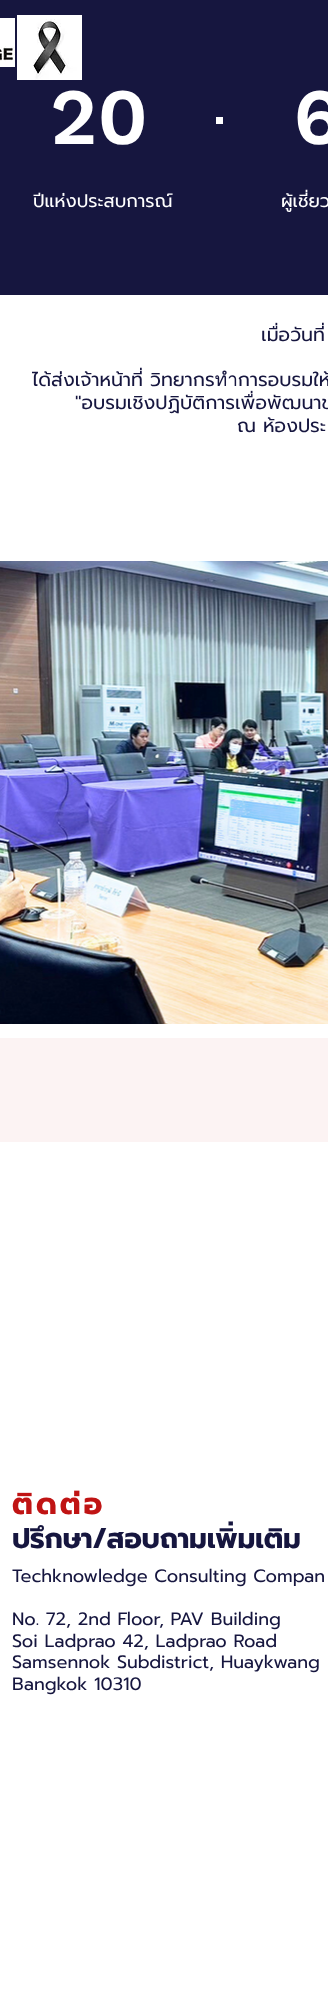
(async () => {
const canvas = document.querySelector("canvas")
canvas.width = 328
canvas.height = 2004
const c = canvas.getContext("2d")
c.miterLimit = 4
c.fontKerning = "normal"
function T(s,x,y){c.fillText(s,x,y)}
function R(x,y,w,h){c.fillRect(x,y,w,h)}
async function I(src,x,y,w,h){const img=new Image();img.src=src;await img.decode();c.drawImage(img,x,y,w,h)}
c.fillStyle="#fff"
R(0,0,328,2004)
c.fillStyle="#16163f"
R(0,0,328,295)
await I("1.png",0,18,15,49)
await I("2.png",17,15,65,65)
c.font="600 80px Work Sans"
c.fillStyle="#fff"
T("20",50,144)
R(216,117,7,7)
T("6",293,144)
c.font="18px Prompt"
T("ปีแห่งประสบการณ์",33,207)
T("ผู้เชี่ยว",281,207)
c.font="19px Prompt"
c.fillStyle="#16163f"
T("เมื่อวันที่",261,341)
T("ได้ส่งเจ้าหน้าที่ วิทยากรทำการอบรมให้",32,386)
T("\"อบรมเชิงปฏิบัติการเพื่อพัฒนาข",75,409)
T("ณ ห้องประ",237,432)
await I("3.png",0,561,328,463)
c.fillStyle="#fcf3f3"
R(0,1038,328,104)
c.letterSpacing="3px"
c.font="bold 30px Prompt"
c.fillStyle="#c01414"
T("ติดต่อ",12,1514)
c.letterSpacing="-0.25px"
c.font="bold 28px Prompt"
c.fillStyle="#16163f"
T("ปรึกษา/สอบถามเพิ่มเติม",12,1548)
c.letterSpacing="0px"
c.font="18px Prompt"
T("Techknowledge Consulting Compan",12,1582)
T("No. 72, 2nd Floor, PAV Building",12,1625)
T("Soi Ladprao 42, Ladprao Road",12,1647)
T("Samsennok Subdistrict, Huaykwang",12,1668)
T("Bangkok 10310",12,1690)
})()
